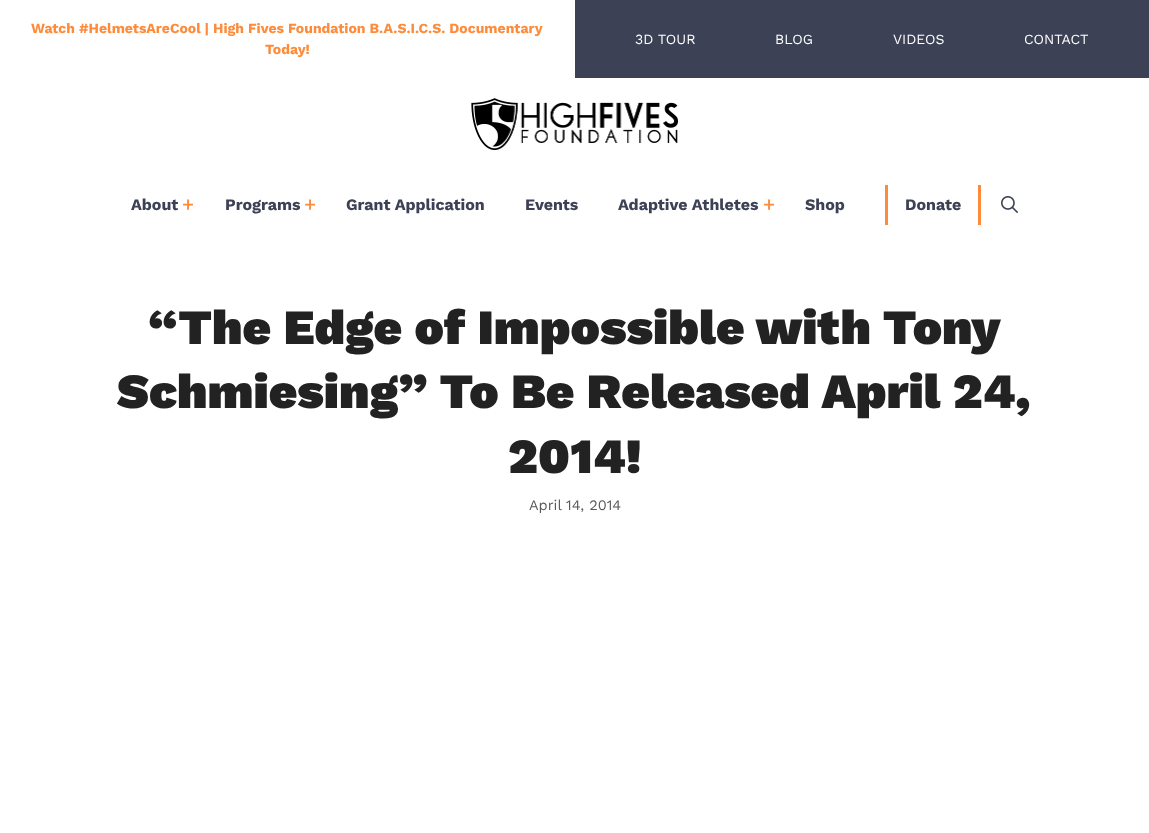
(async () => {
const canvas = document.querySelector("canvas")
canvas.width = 1149
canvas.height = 833
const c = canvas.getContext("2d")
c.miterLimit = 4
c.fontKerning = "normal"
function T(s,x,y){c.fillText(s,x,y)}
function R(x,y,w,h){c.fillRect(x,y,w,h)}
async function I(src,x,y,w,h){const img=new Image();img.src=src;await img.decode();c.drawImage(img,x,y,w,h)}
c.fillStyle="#fff"
R(0,0,1149,833)
c.font="bold 14px Work Sans"
c.fillStyle="#fd8b3a"
T("Watch #HelmetsAreCool | High Fives Foundation B.A.S.I.C.S. Documentary",31,33)
T("Today!",265,54)
c.fillStyle="#3c4155"
R(575,0,574,78)
c.font="14px Work Sans"
c.fillStyle="#fff"
T("3D TOUR",635,44)
T("BLOG",775,44)
T("VIDEOS",893,44)
T("CONTACT",1024,44)
await I("1.png",471,98,207,52)
c.font="bold 16px Work Sans"
c.fillStyle="#3c4155"
T("About",131,210)
c.font="500 20px Work Sans"
c.fillStyle="#fd8b3a"
T("+",182,211)
c.font="bold 16px Work Sans"
c.fillStyle="#3c4155"
T("Programs",225,210)
c.font="500 20px Work Sans"
c.fillStyle="#fd8b3a"
T("+",304,211)
c.font="bold 16px Work Sans"
c.fillStyle="#3c4155"
T("Grant Application",346,210)
T("Events",525,210)
T("Adaptive Athletes",618,210)
c.font="500 20px Work Sans"
c.fillStyle="#fd8b3a"
T("+",763,211)
c.font="bold 16px Work Sans"
c.fillStyle="#3c4155"
T("Shop",805,210)
c.fillStyle="#fd8b3a"
R(885,185,3,40)
c.fillStyle="#3c4155"
T("Donate",905,210)
c.fillStyle="#fd8b3a"
R(978,185,3,40)
await I("2.png",1001,196,17,17)
c.font="900 49.25px Work Sans"
c.fillStyle="#222"
T("“The Edge of Impossible with Tony",148,344)
T("Schmiesing” To Be Released April 24,",117,408)
T("2014!",508,473)
c.font="14.5px Work Sans"
c.fillStyle="#595959"
T("April 14, 2014",529,510)
})()
